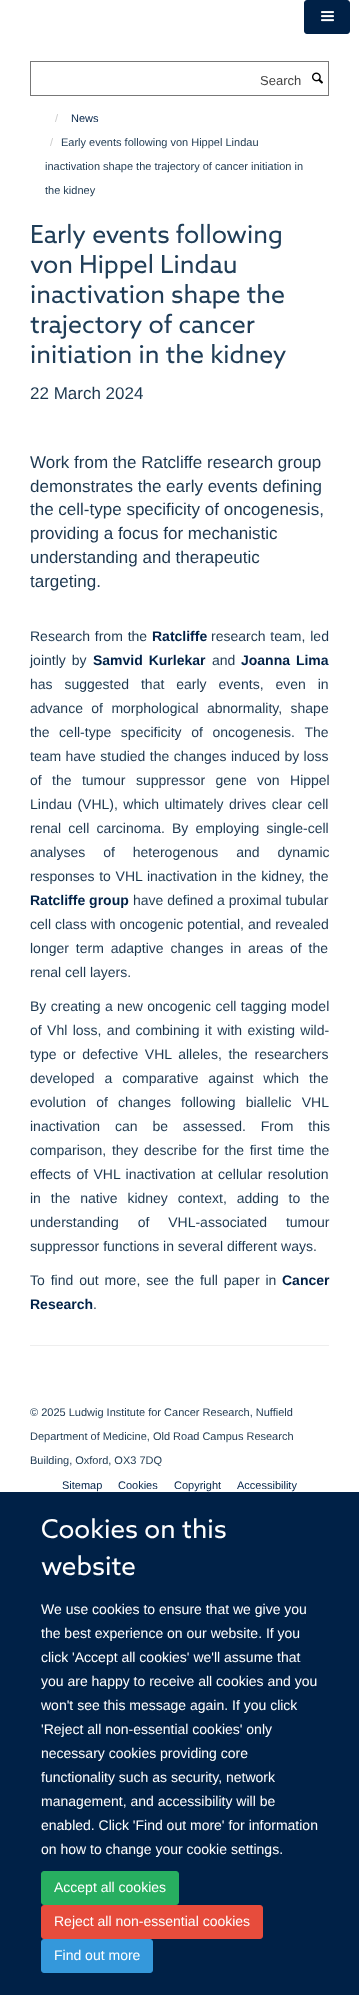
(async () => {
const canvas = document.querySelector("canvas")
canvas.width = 359
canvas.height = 1995
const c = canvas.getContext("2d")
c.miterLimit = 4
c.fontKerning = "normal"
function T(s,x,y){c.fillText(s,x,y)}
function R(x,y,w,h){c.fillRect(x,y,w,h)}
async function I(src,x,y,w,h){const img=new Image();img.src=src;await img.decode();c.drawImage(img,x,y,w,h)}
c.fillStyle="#fff"
R(0,0,359,1995)
c.fillStyle="#002147"
c.beginPath()
c.roundRect(304.5,.5,45,33,2.5)
c.fill()
c.strokeStyle="#002147"
c.stroke()
await I("1.png",321,11,13,11)
c.strokeStyle="#777"
c.strokeRect(30.5,61.5,298,34)
c.font="13px Liberation Sans"
c.fillStyle="#444"
T("Search",260,85)
await I("2.png",312,72,11,12)
c.font="11px Liberation Sans"
c.fillStyle="#ccc"
T("/",55,122)
c.fillStyle="#002147"
T("News",71,122)
c.fillStyle="#ccc"
T("/",50,146)
c.fillStyle="#1d3850"
T("Early events following von Hippel Lindau",61,146)
T("inactivation shape the trajectory of cancer initiation in",45,170)
T("the kidney",45,194)
c.font="25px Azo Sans"
c.fillStyle="#203e58"
T("Early events following",30,243)
T("von Hippel Lindau",30,273)
T("inactivation shape the",30,303)
T("trajectory of cancer",30,333)
T("initiation in the kidney",30,363)
c.font="17px Liberation Sans"
c.fillStyle="#1d3850"
T("22 March 2024",30,399)
T("Work from the Ratcliffe research group",30,468)
T("demonstrates the early events defining",30,492)
T("the cell-type specificity of oncogenesis,",30,515)
T("providing a focus for mechanistic",30,539)
T("understanding and therapeutic",30,563)
T("targeting.",30,587)
c.wordSpacing="1px"
c.font="14px Liberation Sans"
T("Research from the",30,641)
c.wordSpacing="0px"
c.font="bold 14px Liberation Sans"
c.fillStyle="#002147"
T("Ratcliffe",152,641)
c.wordSpacing="1px"
c.font="14px Liberation Sans"
c.fillStyle="#1d3850"
T("research team, led",211,641)
c.wordSpacing="2px"
T("jointly by",30,665)
c.font="bold 14px Liberation Sans"
c.fillStyle="#002147"
T("Samvid Kurlekar",93,665)
c.wordSpacing="0px"
c.font="14px Liberation Sans"
c.fillStyle="#1d3850"
T("and",212,665)
c.wordSpacing="2px"
c.font="bold 14px Liberation Sans"
c.fillStyle="#002147"
T("Joanna Lima",241,665)
c.wordSpacing="8px"
c.font="14px Liberation Sans"
c.fillStyle="#1d3850"
T("has suggested that early events, even in",30,689)
c.wordSpacing="4.5px"
T("advance of morphological abnormality, shape",30,713)
c.wordSpacing="5.75px"
T("the cell-type specificity of oncogenesis. The",30,737)
c.wordSpacing="0.5px"
T("team have studied the changes induced by loss",30,761)
c.wordSpacing="6.5px"
T("of the tumour suppressor gene von Hippel",30,785)
c.wordSpacing="1.5px"
T("Lindau (VHL), which ultimately drives clear cell",30,809)
c.wordSpacing="3.25px"
T("renal cell carcinoma. By employing single-cell",30,833)
c.wordSpacing="14px"
T("analyses of heterogenous and dynamic",30,857)
c.wordSpacing="0.75px"
T("responses to VHL inactivation in the kidney, the",30,881)
c.wordSpacing="0px"
c.font="bold 14px Liberation Sans"
c.fillStyle="#002147"
T("Ratcliffe group",30,905)
c.font="14px Liberation Sans"
c.fillStyle="#1d3850"
T("have defined a proximal tubular",133,905)
T("cell class with oncogenic potential, and revealed",30,929)
c.wordSpacing="3px"
T("longer term adaptive changes in areas of the",30,953)
c.wordSpacing="0px"
T("renal cell layers.",30,977)
c.wordSpacing="0.5px"
T("By creating a new oncogenic cell tagging model",30,1011)
c.wordSpacing="1.5px"
T("of Vhl loss, and combining it with existing wild-",30,1035)
c.wordSpacing="2.75px"
T("type or defective VHL alleles, the researchers",30,1059)
c.wordSpacing="6px"
T("developed a comparative against which the",30,1083)
c.wordSpacing="6.25px"
T("evolution of changes following biallelic VHL",30,1107)
c.wordSpacing="11px"
T("inactivation can be assessed. From this",30,1131)
c.wordSpacing="1.75px"
T("comparison, they describe for the first time the",30,1155)
c.wordSpacing="1.5px"
T("effects of VHL inactivation at cellular resolution",30,1179)
c.wordSpacing="6px"
T("in the native kidney context, adding to the",30,1203)
c.wordSpacing="15px"
T("understanding of VHL-associated tumour",30,1227)
c.wordSpacing="0px"
T("suppressor functions in several different ways.",30,1251)
c.wordSpacing="2px"
T("To find out more, see the full paper in",30,1285)
c.wordSpacing="0px"
c.font="bold 14px Liberation Sans"
c.fillStyle="#002147"
T("Cancer",282,1285)
T("Research",30,1309)
c.font="14px Liberation Sans"
c.fillStyle="#1d3850"
T(".",93,1309)
c.fillStyle="#eee"
R(30,1345,299,1)
c.font="11px Liberation Sans"
c.fillStyle="#1d3850"
T("© 2025 Ludwig Institute for Cancer Research, Nuffield",30,1416)
T("Department of Medicine, Old Road Campus Research",30,1440)
T("Building, Oxford, OX3 7DQ",30,1464)
c.fillStyle="#002147"
T("Sitemap",62,1489)
T("Cookies",118,1489)
T("Copyright",174,1489)
T("Accessibility",237,1489)
R(0,1492,359,503)
c.font="26px Azo Sans"
c.fillStyle="#fff"
T("Cookies on this",41,1538)
T("website",41,1575)
c.font="14px Liberation Sans"
T("We use cookies to ensure that we give you",41,1614)
T("the best experience on our website. If you",41,1638)
T("click 'Accept all cookies' we'll assume that",41,1662)
T("you are happy to receive all cookies and you",41,1686)
T("won't see this message again. If you click",41,1710)
T("'Reject all non-essential cookies' only",41,1734)
T("necessary cookies providing core",41,1758)
T("functionality such as security, network",41,1782)
T("management, and accessibility will be",41,1806)
T("enabled. Click 'Find out more' for information",41,1830)
T("on how to change your cookie settings.",41,1854)
c.fillStyle="#27ae60"
c.beginPath()
c.roundRect(41.5,1871.5,137,33,2.5)
c.fill()
c.strokeStyle="#27ae60"
c.stroke()
c.fillStyle="#fff"
T("Accept all cookies",54,1892)
c.fillStyle="#e74c3c"
c.beginPath()
c.roundRect(41.5,1905.5,221,33,2.5)
c.fill()
c.strokeStyle="#e74c3c"
c.stroke()
c.fillStyle="#fff"
T("Reject all non-essential cookies",54,1926)
c.fillStyle="#3498db"
c.beginPath()
c.roundRect(41.5,1939.5,111,33,2.5)
c.fill()
c.strokeStyle="#3498db"
c.stroke()
c.fillStyle="#fff"
T("Find out more",54,1960)
})()
